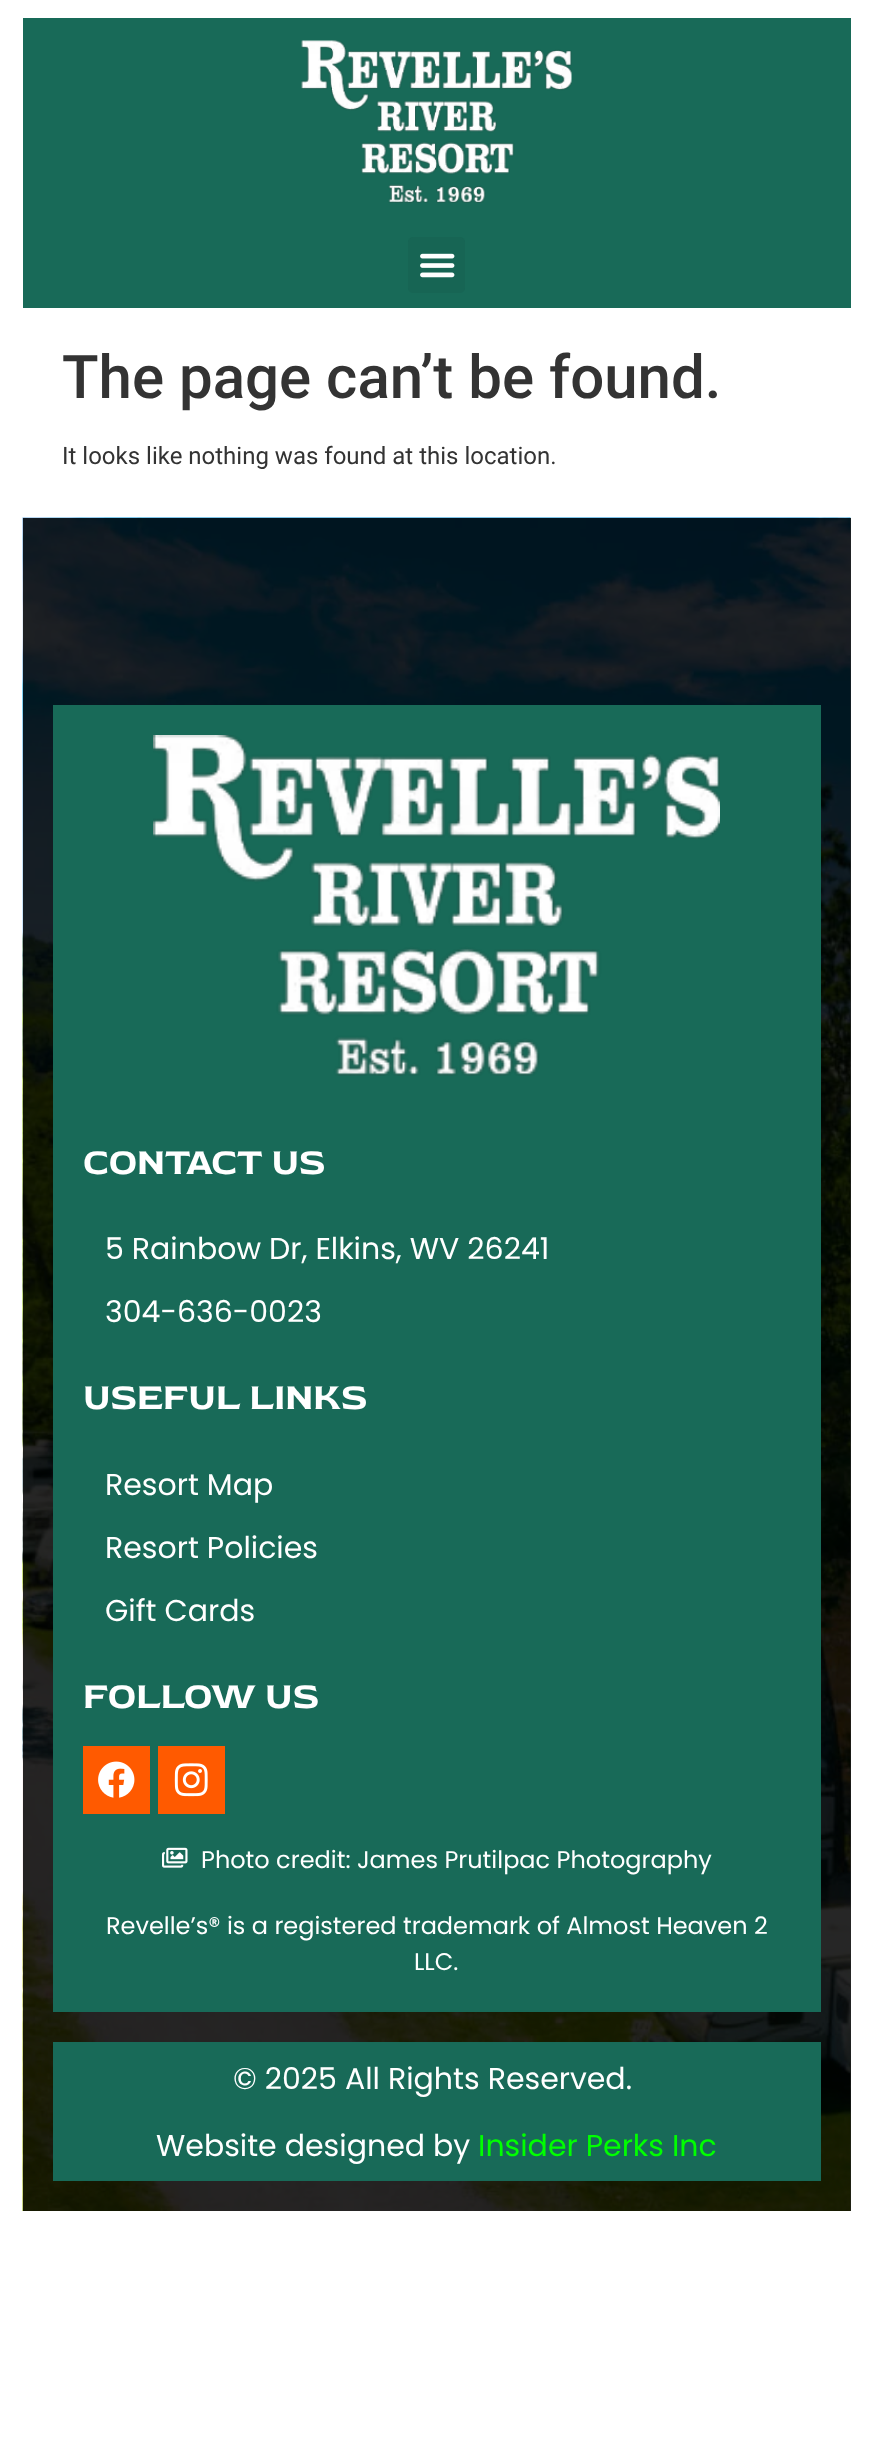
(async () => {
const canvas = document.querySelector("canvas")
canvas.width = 873
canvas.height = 2439
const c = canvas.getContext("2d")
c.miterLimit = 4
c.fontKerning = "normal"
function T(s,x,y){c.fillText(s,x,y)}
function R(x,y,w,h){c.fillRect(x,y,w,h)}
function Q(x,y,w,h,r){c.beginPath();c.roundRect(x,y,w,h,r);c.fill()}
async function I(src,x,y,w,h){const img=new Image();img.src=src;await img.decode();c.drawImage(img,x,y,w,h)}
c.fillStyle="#fff"
R(0,0,873,2439)
c.fillStyle="#262626"
R(850,518,1,1693)
c.fillStyle="#186a58"
R(23,18,828,290)
await I("1.png",301,40,271,163)
c.fillStyle="#176554"
Q(408,237,57,56,5)
await I("2.png",420,253,35,25)
c.font="500 60px Roboto"
c.fillStyle="#333"
T("The page can’t be found.",62,398)
c.font="24px Roboto"
T("It looks like nothing was found at this location.",62,464)
await I("3.png",22,517,829,1694)
c.fillStyle="#186a58"
R(53,705,768,1307)
await I("4.png",153,735,567,341)
c.font="bold 37.5px Red Rose"
c.fillStyle="#fff"
T("CONTACT US",83,1174)
c.font="30px Poppins"
T("5 Rainbow Dr, Elkins, WV 26241",105,1259)
T("304-636-0023",105,1322)
c.font="bold 37.5px Red Rose"
T("USEFUL LINKS",83,1409)
c.font="30px Poppins"
T("Resort Map",105,1495)
T("Resort Policies",105,1558)
T("Gift Cards",105,1621)
c.font="bold 37.5px Red Rose"
T("FOLLOW US",83,1708)
c.fillStyle="#ff5a00"
R(83,1746,67,68)
await I("5.png",98,1761,37,37)
R(158,1746,67,68)
await I("6.png",174,1763,34,34)
await I("7.png",162,1847,26,21)
c.font="24px Poppins"
c.fillStyle="#fff"
T("Photo credit: James Prutilpac Photography",201,1868)
T("Revelle’s® is a registered trademark of Almost Heaven 2",106,1934)
T("LLC.",414,1970)
c.fillStyle="#186a58"
R(53,2042,768,139)
c.font="30px Poppins"
c.fillStyle="#fff"
T("© 2025 All Rights Reserved.",233,2089)
T("Website designed by",156,2156)
c.fillStyle="#0f0"
T("Insider Perks Inc",478,2156)
})()
